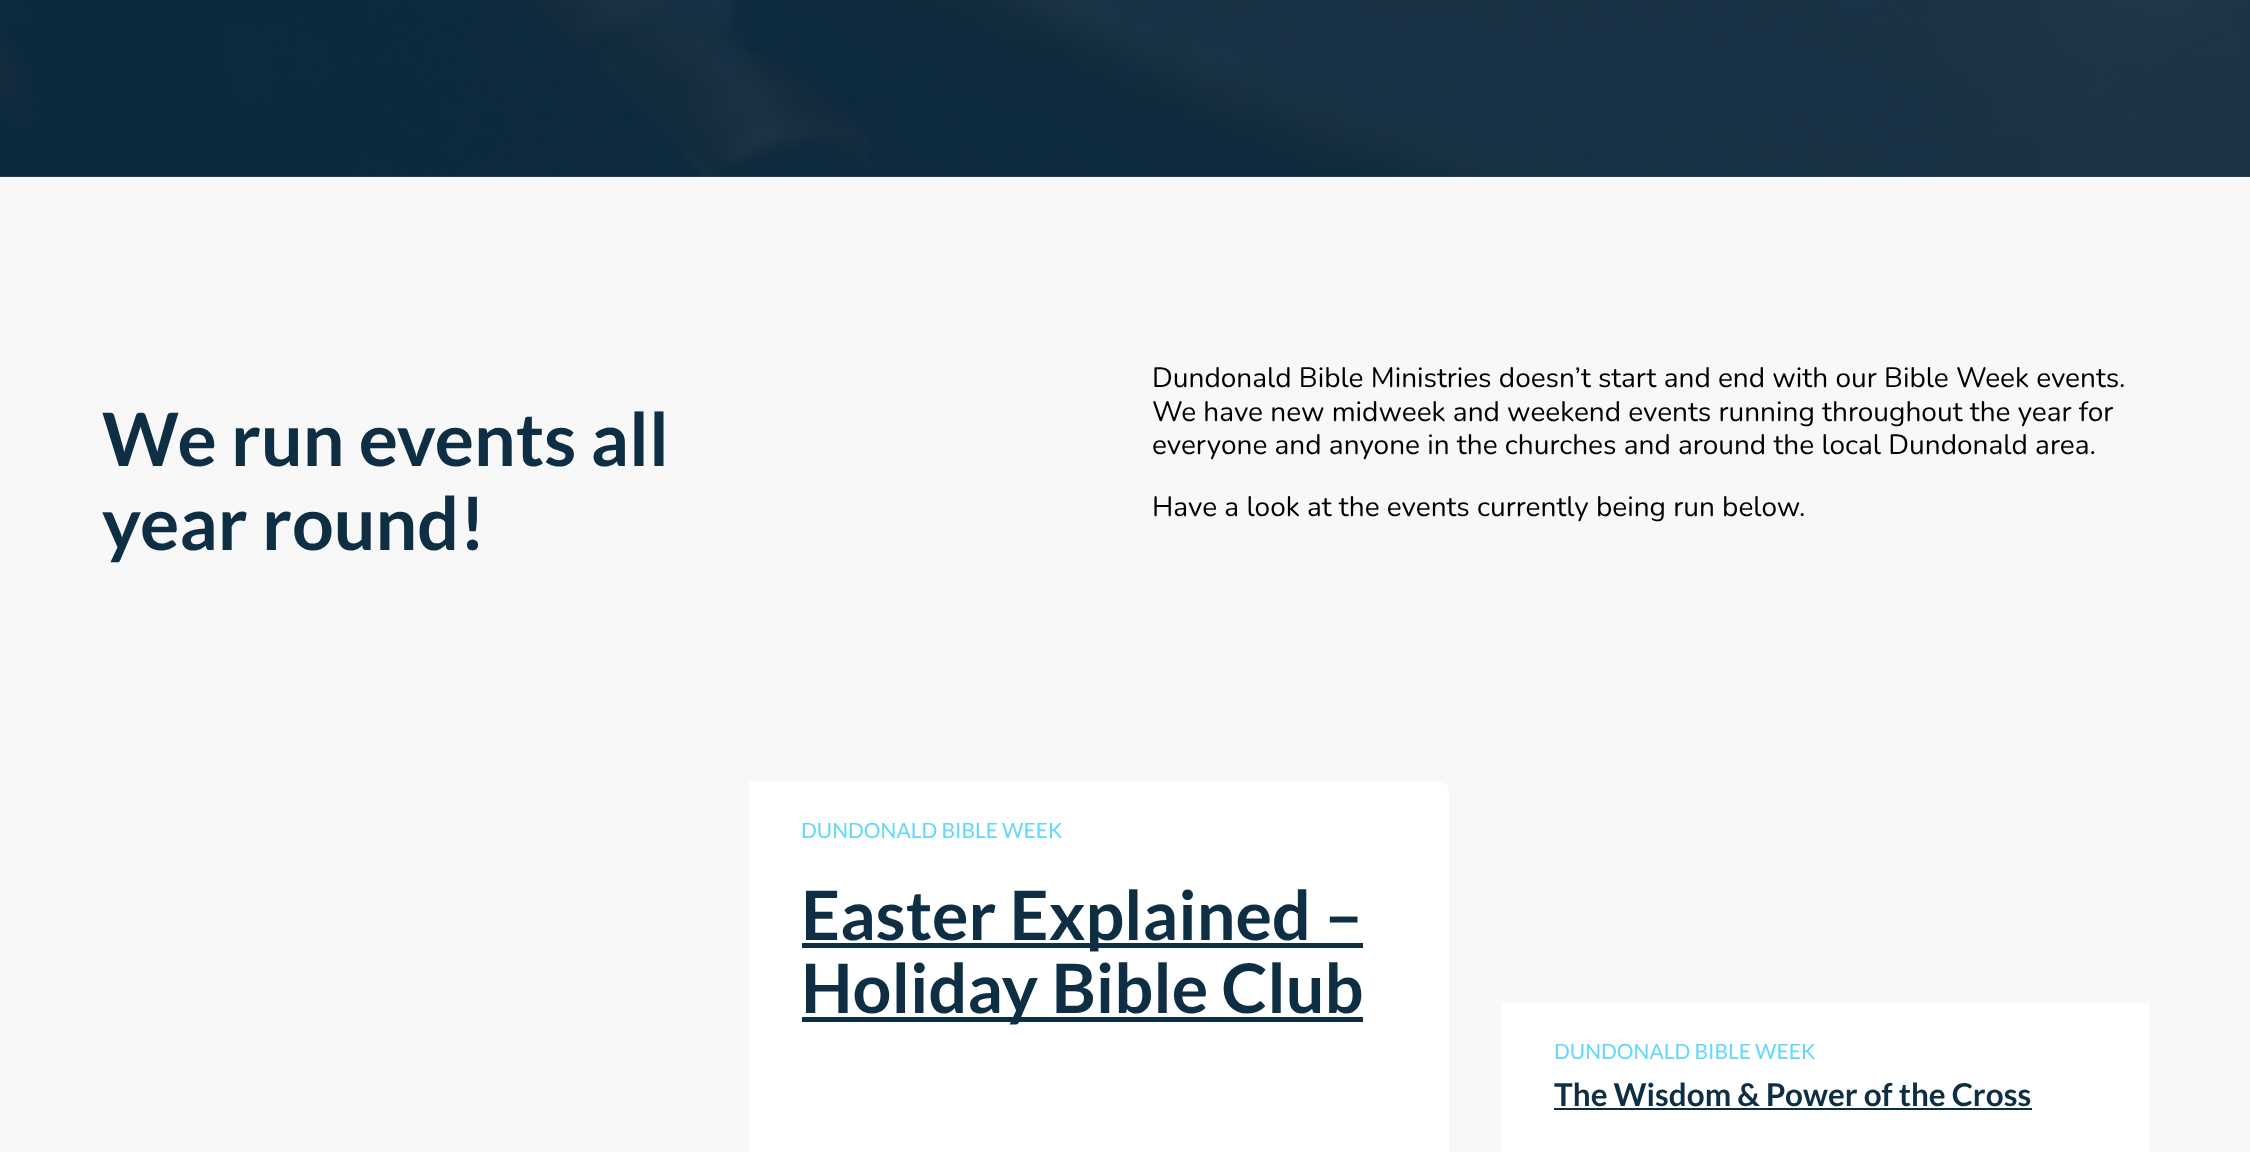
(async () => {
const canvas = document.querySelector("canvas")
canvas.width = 2250
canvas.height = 1152
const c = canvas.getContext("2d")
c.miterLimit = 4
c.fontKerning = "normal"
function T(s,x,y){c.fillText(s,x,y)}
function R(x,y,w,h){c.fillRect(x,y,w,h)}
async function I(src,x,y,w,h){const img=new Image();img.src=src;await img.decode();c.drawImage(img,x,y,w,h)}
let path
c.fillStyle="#f8f8f8"
R(0,0,2250,1152)
c.fillStyle="#254255"
R(0,176,2250,1)
await I("1.png",0,0,2250,177)
c.font="bold 73.5px Lato"
c.fillStyle="#0e2e43"
T("We run events all",102,466)
T("year round!",102,550)
c.font="28px Nunito"
c.fillStyle="#000"
T("Dundonald Bible Ministries doesn’t start and end with our Bible Week events.",1152,387)
T("We have new midweek and weekend events running throughout the year for",1152,421)
T("everyone and anyone in the churches and around the local Dundonald area.",1152,454)
T("Have a look at the events currently being run below.",1152,516)
c.fillStyle="#fff"
path = new Path2D("M749 782h691c5 0 9 4 9 9v361c0 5-4 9-9 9h-691z")
c.fill(path)
c.font="21px Lato"
c.fillStyle="#61d8fb"
T("DUNDONALD BIBLE WEEK",801,838)
c.fillStyle="#0e2e43"
R(802,943,561,5)
c.font="bold 68.25px Lato"
T("Easter Explained –",801,940)
R(802,1017,561,5)
T("Holiday Bible Club",801,1013)
c.fillStyle="#fff"
R(1502,1003,647,149)
c.font="21px Lato"
c.fillStyle="#61d8fb"
T("DUNDONALD BIBLE WEEK",1554,1059)
c.font="bold 31.5px Lato"
c.fillStyle="#0e2e43"
T("The Wisdom & Power of the Cross",1554,1106)
R(1554,1108,478,2)
})()
